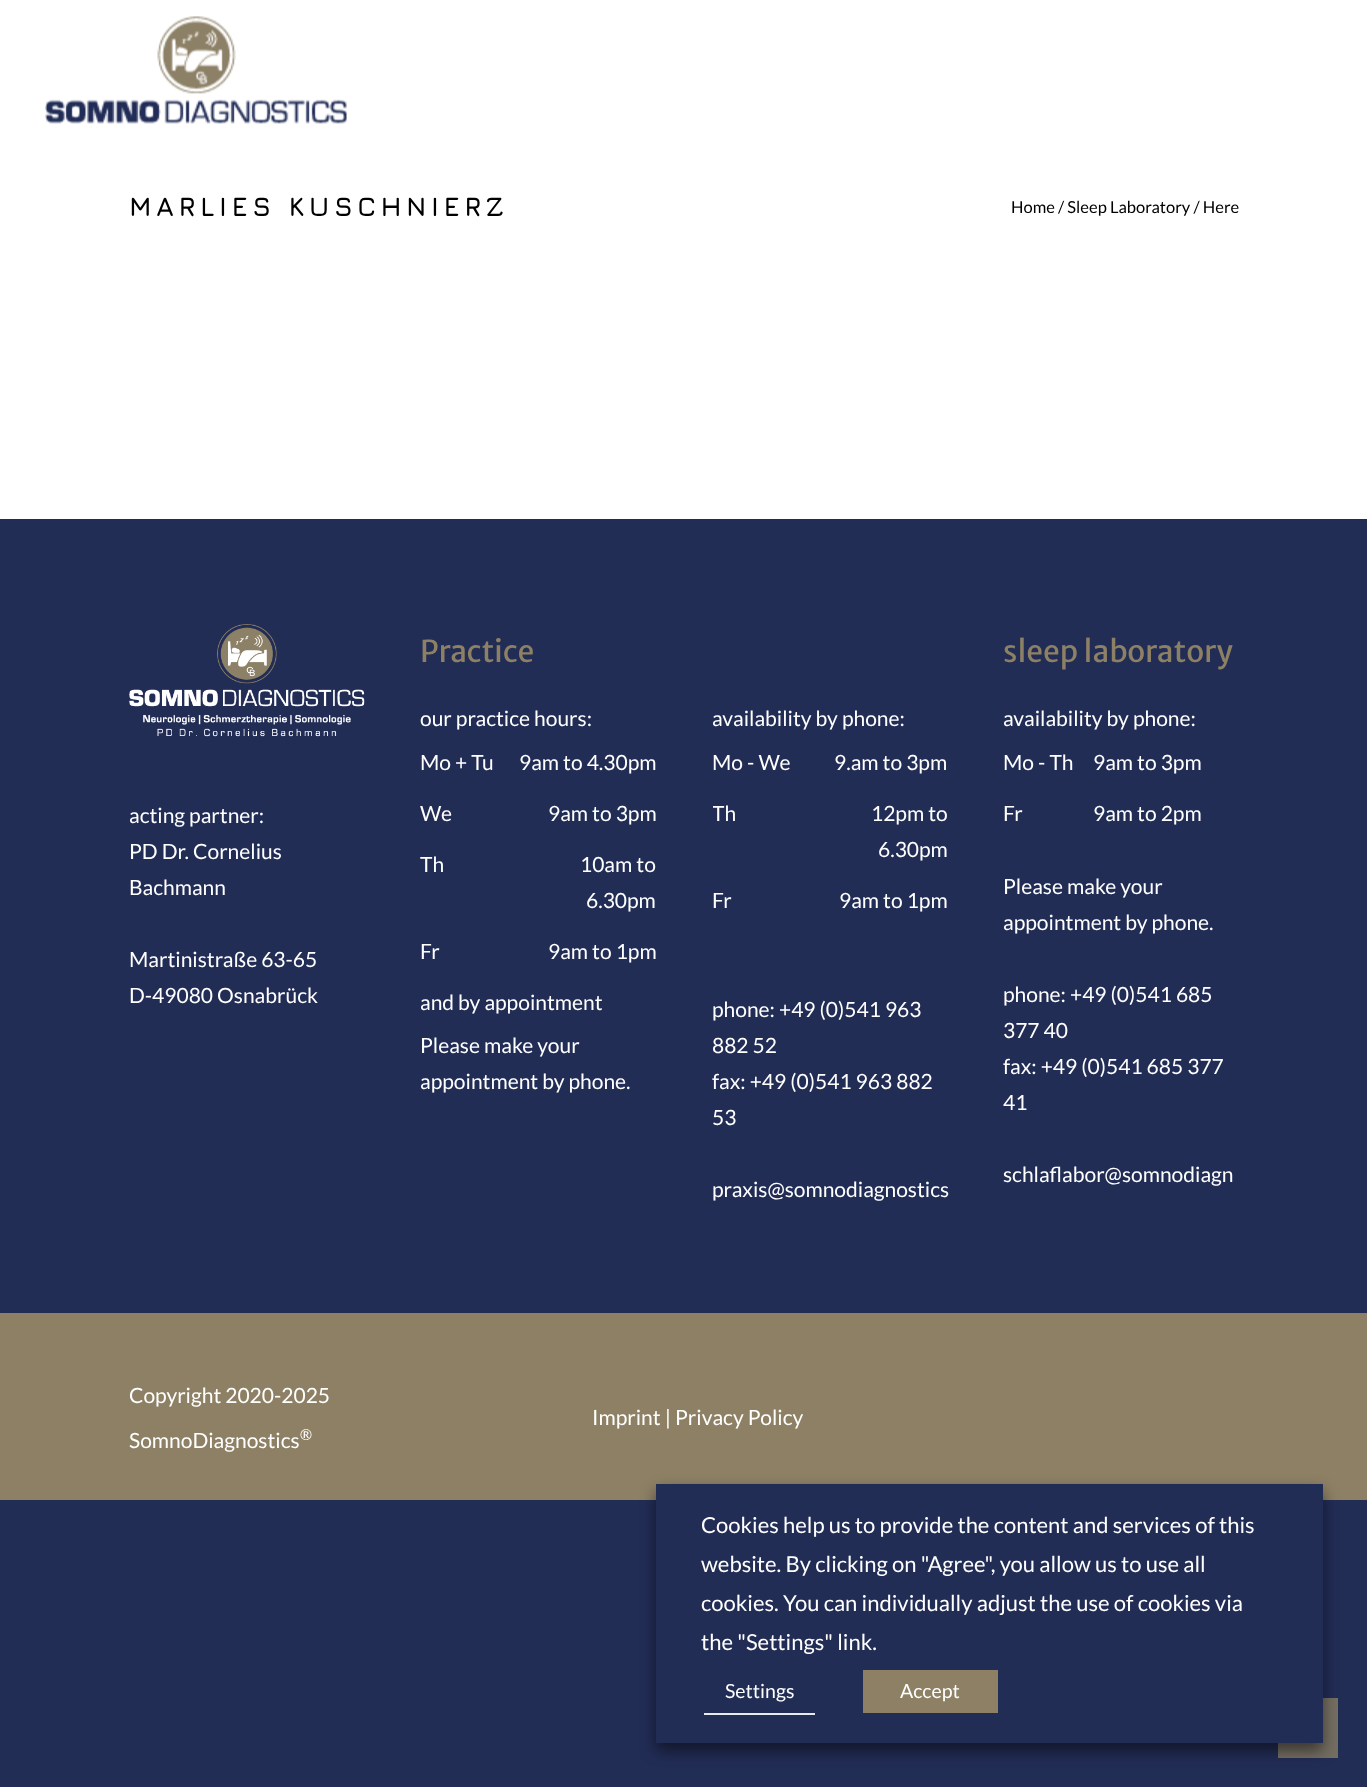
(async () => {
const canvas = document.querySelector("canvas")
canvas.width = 1367
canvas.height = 1787
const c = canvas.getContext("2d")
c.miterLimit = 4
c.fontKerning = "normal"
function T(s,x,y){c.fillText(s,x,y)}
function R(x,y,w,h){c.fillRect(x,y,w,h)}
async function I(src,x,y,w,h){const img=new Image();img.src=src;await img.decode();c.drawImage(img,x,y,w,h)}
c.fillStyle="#222d56"
R(0,0,1367,1787)
c.fillStyle="#fff"
R(0,0,1367,519)
await I("1.png",45,16,302,108)
c.letterSpacing="4.5px"
c.font="300 27px Jura"
c.fillStyle="#000"
T("MARLIES KUSCHNIERZ",129,216)
c.letterSpacing="0px"
c.font="16.5px Lato"
T("Home / Sleep Laboratory / Here",1011,213)
await I("2.png",129,624,236,113)
c.font="21px Lato"
c.fillStyle="#fff"
T("acting partner:",129,823)
T("PD Dr. Cornelius",129,859)
T("Bachmann",129,895)
T("Martinistraße 63-65",129,967)
T("D-49080 Osnabrück",129,1003)
c.font="30px Merriweather Sans"
c.fillStyle="#8d8065"
T("Practice",420,662)
c.font="21px Lato"
c.fillStyle="#fff"
T("our practice hours:",420,726)
T("Mo + Tu",420,770)
T("9am to 4.30pm",519,770)
T("We",420,821)
T("9am to 3pm",548,821)
T("Th",420,872)
T("10am to",580,872)
T("6.30pm",586,908)
T("Fr",420,959)
T("9am to 1pm",548,959)
T("and by appointment",420,1010)
T("Please make your",420,1053)
T("appointment by phone.",420,1089)
c.save()
c.beginPath()
c.rect(713,624,235,584)
c.clip()
T("availability by phone:",712,726)
c.restore()
T("Mo - We",712,770)
T("9.am to 3pm",834,770)
c.save()
c.beginPath()
c.rect(713,624,235,584)
c.clip()
T("Th",712,821)
c.restore()
T("12pm to",871,821)
T("6.30pm",878,857)
T("Fr",712,908)
T("9am to 1pm",839,908)
T("phone: +49 (0)541 963",712,1017)
T("882 52",712,1053)
T("fax: +49 (0)541 963 882",712,1089)
T("53",712,1125)
T("praxis@somnodiagnostics",712,1197)
c.font="30px Merriweather Sans"
c.fillStyle="#8d8065"
T("sleep laboratory",1003,662)
c.font="21px Lato"
c.fillStyle="#fff"
T("availability by phone:",1003,726)
T("Mo - Th",1003,770)
T("9am to 3pm",1093,770)
T("Fr",1003,821)
T("9am to 2pm",1093,821)
T("Please make your",1003,894)
T("appointment by phone.",1003,930)
T("phone: +49 (0)541 685",1003,1002)
T("377 40",1003,1038)
T("fax: +49 (0)541 685 377",1003,1074)
T("41",1003,1110)
T("schlaflabor@somnodiagn",1003,1182)
c.fillStyle="#8d8065"
R(0,1313,1367,187)
c.fillStyle="#fff"
T("Copyright 2020-2025",129,1403)
T("SomnoDiagnostics",129,1448)
c.font="15px Lato"
T("®",300,1440)
c.font="21px Lato"
T("Imprint | Privacy Policy",592,1425)
c.fillStyle="#756e62"
R(1278,1698,60,60)
c.fillStyle="#00000080"
c.filter="blur(7.5px)"
c.beginPath()
c.rect(656,1491,667,260)
c.fill()
c.filter="none"
c.fillStyle="#222d56"
R(656,1484,667,259)
c.font="22px Lato"
c.fillStyle="#fff"
T("Cookies help us to provide the content and services of this",701,1533)
T("website. By clicking on \"Agree\", you allow us to use all",701,1572)
T("cookies. You can individually adjust the use of cookies via",701,1611)
T("the \"Settings\" link.",701,1650)
c.fillStyle="#e9eaee"
R(704,1713,111,2)
c.font="19.5px Lato"
c.fillStyle="#fff"
T("Settings",725,1698)
c.fillStyle="#8d8065"
R(863,1670,135,43)
c.fillStyle="#fff"
T("Accept",900,1698)
})()
